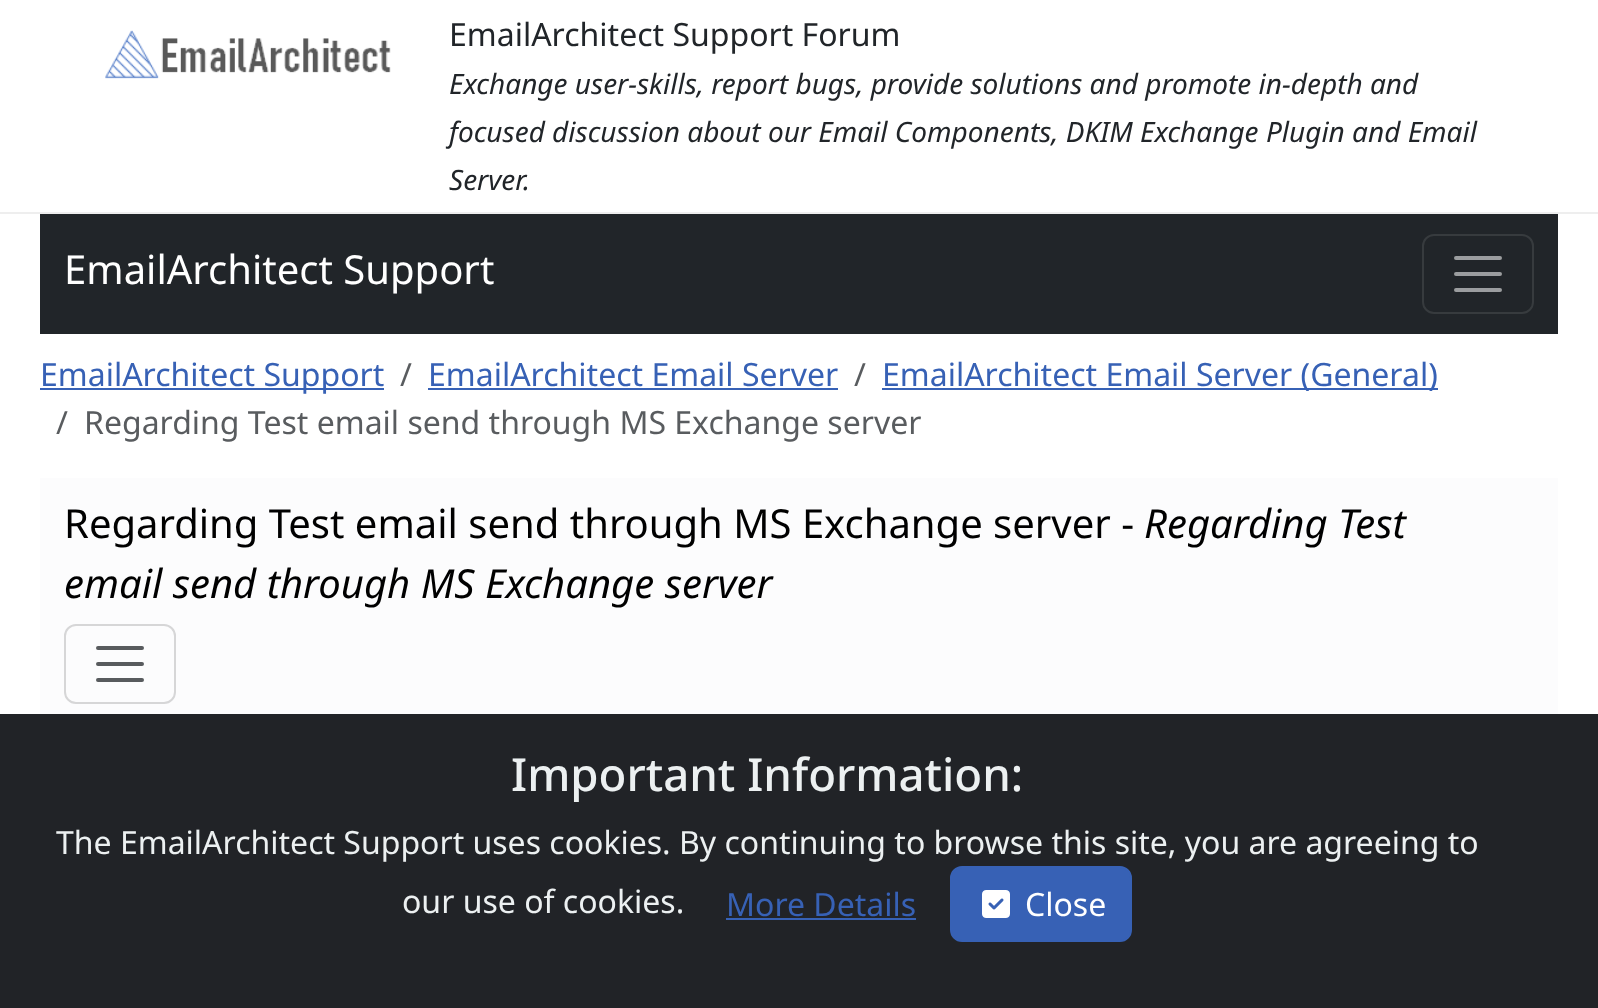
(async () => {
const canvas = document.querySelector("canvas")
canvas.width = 1598
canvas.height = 1008
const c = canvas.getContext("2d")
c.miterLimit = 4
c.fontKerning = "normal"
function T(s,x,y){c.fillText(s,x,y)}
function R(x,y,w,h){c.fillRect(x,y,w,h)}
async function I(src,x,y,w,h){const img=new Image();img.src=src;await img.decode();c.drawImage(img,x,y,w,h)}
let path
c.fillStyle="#fff"
R(0,0,1598,1008)
c.fillStyle="#eee"
R(0,212,1598,2)
await I("1.png",105,30,286,49)
c.font="32px Noto Sans"
c.fillStyle="#212529"
T("EmailArchitect Support Forum",449,46)
c.font="italic 28px Noto Sans"
T("Exchange user-skills, report bugs, provide solutions and promote in-depth and",449,94)
T("focused discussion about our Email Components, DKIM Exchange Plugin and Email",449,142)
T("Server.",449,190)
R(40,214,1518,120)
c.font="40px Noto Sans"
c.fillStyle="#fff"
T("EmailArchitect Support",64,284)
c.beginPath()
c.roundRect(1423,235,110,78,11)
c.strokeStyle="#373b3e"
c.lineWidth=2
c.stroke()
path = new Path2D("M1456 258h44m-44 16h44m-44 16h44")
c.strokeStyle="#9b9d9f"
c.lineWidth=4
c.lineCap="round"
c.stroke(path)
c.fillStyle="#3761b5"
R(40,388,344,2)
c.font="32px Noto Sans"
T("EmailArchitect Support",40,386)
c.fillStyle="#595c5f"
T("/",400,386)
c.fillStyle="#3761b5"
T("EmailArchitect Email Server",428,386)
R(428,388,410,2)
c.fillStyle="#595c5f"
T("/",854,386)
c.fillStyle="#3761b5"
R(882,388,556,2)
T("EmailArchitect Email Server (General)",882,386)
c.fillStyle="#595c5f"
T("/",56,434)
T("Regarding Test email send through MS Exchange server",84,434)
c.fillStyle="#fcfcfd"
R(40,478,1518,236)
c.font="40px Noto Sans"
c.fillStyle="#000"
T("Regarding Test email send through MS Exchange server -",64,538)
c.font="italic 40px Noto Sans"
T("Regarding Test",1144,538)
T("email send through MS Exchange server",64,598)
c.beginPath()
c.roundRect(65,625,110,78,11)
c.strokeStyle="#d6d6d7"
c.lineWidth=2
c.stroke()
path = new Path2D("M98 648h44m-44 16h44m-44 16h44")
c.strokeStyle="#585b5e"
c.lineWidth=4
c.stroke(path)
c.fillStyle="#212327"
R(0,714,1598,294)
c.font="500 45.6px Noto Sans"
c.fillStyle="#ecf0f1"
T("Important Information:",511,791)
c.font="32px Noto Sans"
T("The EmailArchitect Support uses cookies. By continuing to browse this site, you are agreeing to",56,854)
T("our use of cookies.",402,913)
c.fillStyle="#3761b5"
T("More Details",726,916)
R(726,918,190,2)
c.beginPath()
c.roundRect(951,867,180,74,11)
c.fill()
c.strokeStyle="#3761b5"
c.lineWidth=2
c.stroke()
await I("2.png",982,890,28,28)
c.fillStyle="#fff"
T("Close",1025,916)
})()
